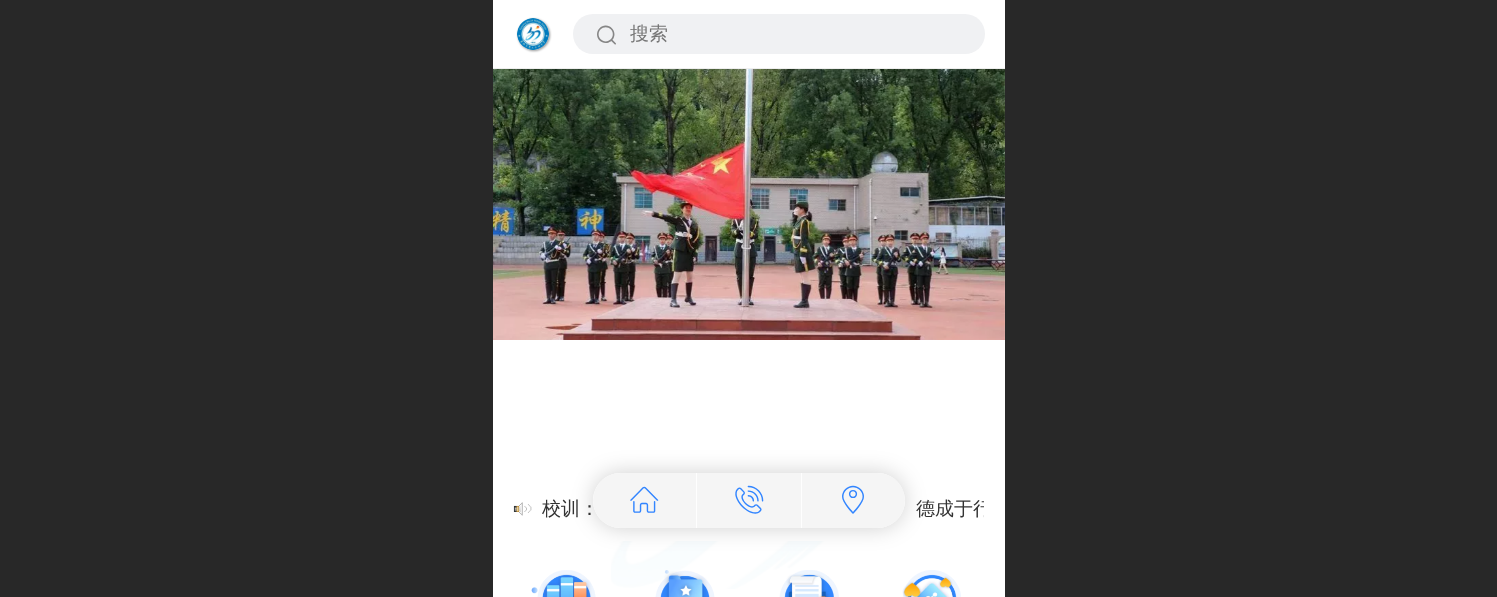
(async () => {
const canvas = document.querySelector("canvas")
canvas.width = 1497
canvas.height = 597
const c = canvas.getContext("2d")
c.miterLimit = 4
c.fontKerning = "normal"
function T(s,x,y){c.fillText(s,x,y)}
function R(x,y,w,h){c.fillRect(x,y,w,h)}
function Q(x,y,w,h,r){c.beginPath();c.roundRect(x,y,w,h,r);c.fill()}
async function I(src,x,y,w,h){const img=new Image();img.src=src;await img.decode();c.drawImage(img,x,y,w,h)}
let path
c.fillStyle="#fff"
R(0,0,1497,597)
c.fillStyle="#282828"
R(0,0,493,597)
c.fillStyle="#eee"
R(493,68,512,1)
c.fillStyle="#00000066"
c.filter="blur(1px)"
c.beginPath()
c.roundRect(518,19,32,32,16)
c.fill()
c.filter="none"
await I("1.png",517,18,32,32)
c.fillStyle="#f0f1f3"
Q(573,14,412,40,20)
c.font="19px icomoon"
c.fillStyle="#868686"
T("򰊐",597,43)
c.font="500 19px WenQuanYi Zen Hei"
c.fillStyle="#757575"
T("搜索",630,40)
await I("2.png",611,477,394,112)
c.fillStyle="#fff"
Q(513,477,471,64,12)
c.save()
path = new Path2D("M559 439h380v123h-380zm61.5 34h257c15 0 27.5 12.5 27.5 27.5c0 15-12.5 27.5-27.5 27.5h-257c-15 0-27.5-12.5-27.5-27.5c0-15 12.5-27.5 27.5-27.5z")
c.clip(path,"evenodd")
c.fillStyle="#00000030"
c.filter="blur(11px)"
c.beginPath()
c.roundRect(593,473,312,55,27.5)
c.fill()
c.filter="none"
c.restore()
c.fillStyle="#f4f4f4ed"
Q(593,473,312,55,27.5)
c.fillStyle="#ffffffd9"
R(696,473,1,55)
c.font="28px icomoon"
c.fillStyle="#3285ff"
T("򠡀",630,512)
c.fillStyle="#ffffffd9"
R(801,473,1,55)
c.fillStyle="#3285ff"
T("򠤉",735,512)
T("򡁶",839,512)
await I("3.png",493,69,512,271)
await I("4.png",513,502,19,14)
c.font="500 19px WenQuanYi Zen Hei"
c.fillStyle="#333"
T("校训：",542,515)
c.save()
c.beginPath()
c.roundRect(513,477,471,64,12)
c.clip()
T("德成于行",916,515)
c.restore()
await I("5.png",531,570,65,27)
await I("6.png",655,570,60,27)
await I("7.png",779,570,60,27)
await I("8.png",902,570,59,27)
c.fillStyle="#282828"
R(1005,0,492,597)
})()
